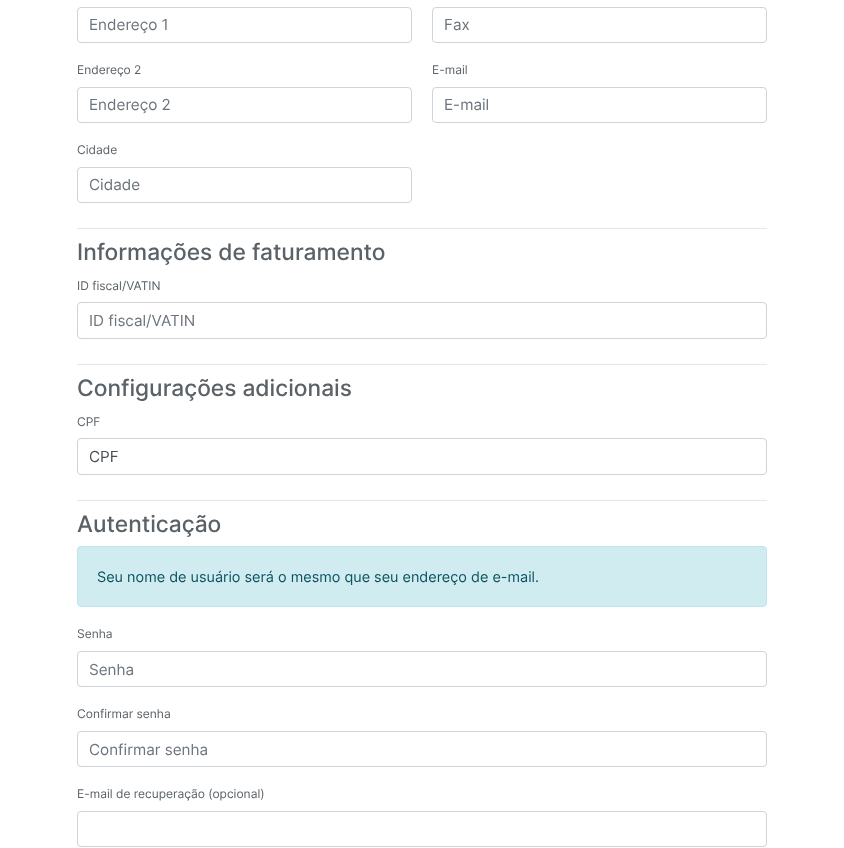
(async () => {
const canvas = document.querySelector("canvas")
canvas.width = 844
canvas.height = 848
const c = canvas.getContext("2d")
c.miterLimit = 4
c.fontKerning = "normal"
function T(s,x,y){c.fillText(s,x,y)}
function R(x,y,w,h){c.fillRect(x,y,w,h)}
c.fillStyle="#fff"
R(0,0,844,848)
c.beginPath()
c.roundRect(77.5,7.5,334,35,3.5)
c.strokeStyle="#ced4da"
c.stroke()
c.font="15.25px Inter"
c.fillStyle="#6c757d"
T("Endereço 1",89,30)
c.font="12px Inter"
c.fillStyle="#5a6268"
T("Endereço 2",77,74)
c.beginPath()
c.roundRect(77.5,87.5,334,35,3.5)
c.stroke()
c.font="15.25px Inter"
c.fillStyle="#6c757d"
T("Endereço 2",89,110)
c.font="12px Inter"
c.fillStyle="#5a6268"
T("Cidade",77,154)
c.beginPath()
c.roundRect(77.5,167.5,334,35,3.5)
c.stroke()
c.font="15.25px Inter"
c.fillStyle="#6c757d"
T("Cidade",89,190)
c.beginPath()
c.roundRect(432.5,7.5,334,35,3.5)
c.stroke()
T("Fax",444,30)
c.font="12px Inter"
c.fillStyle="#5a6268"
T("E-mail",432,74)
c.beginPath()
c.roundRect(432.5,87.5,334,35,3.5)
c.stroke()
c.font="15.25px Inter"
c.fillStyle="#6c757d"
T("E-mail",444,110)
c.fillStyle="#e6e6e6"
R(77,228,690,1)
c.font="500 22.75px Inter"
c.fillStyle="#5a6268"
T("Informações de faturamento",77,260)
c.font="12px Inter"
T("ID fiscal/VATIN",77,290)
c.beginPath()
c.roundRect(77.5,302.5,689,36,3.5)
c.stroke()
c.font="15.25px Inter"
c.fillStyle="#6c757d"
T("ID fiscal/VATIN",89,326)
c.fillStyle="#e6e6e6"
R(77,364,690,1)
c.font="500 22.75px Inter"
c.fillStyle="#5a6268"
T("Configurações adicionais",77,396)
c.font="12px Inter"
T("CPF",77,426)
c.beginPath()
c.roundRect(77.5,438.5,689,36,3.5)
c.stroke()
c.font="15.25px Inter"
c.fillStyle="#495057"
T("CPF",89,462)
c.fillStyle="#e6e6e6"
R(77,500,690,1)
c.font="500 22.75px Inter"
c.fillStyle="#5a6268"
T("Autenticação",77,532)
c.fillStyle="#d1ecf1"
c.beginPath()
c.roundRect(77.5,546.5,689,60,3.5)
c.fill()
c.strokeStyle="#bee5eb"
c.stroke()
c.font="14.45px Inter"
c.fillStyle="#0c5360"
T("Seu nome de usuário será o mesmo que seu endereço de e-mail.",97,582)
c.font="12px Inter"
c.fillStyle="#5a6268"
T("Senha",77,638)
c.beginPath()
c.roundRect(77.5,651.5,689,35,3.5)
c.strokeStyle="#ced4da"
c.stroke()
c.font="15.25px Inter"
c.fillStyle="#6c757d"
T("Senha",89,675)
c.font="12px Inter"
c.fillStyle="#5a6268"
T("Confirmar senha",77,718)
c.beginPath()
c.roundRect(77.5,731.5,689,35,3.5)
c.stroke()
c.font="15.25px Inter"
c.fillStyle="#6c757d"
T("Confirmar senha",89,755)
c.font="12px Inter"
c.fillStyle="#5a6268"
T("E-mail de recuperação (opcional)",77,798)
c.beginPath()
c.roundRect(77.5,811.5,689,35,3.5)
c.stroke()
})()
